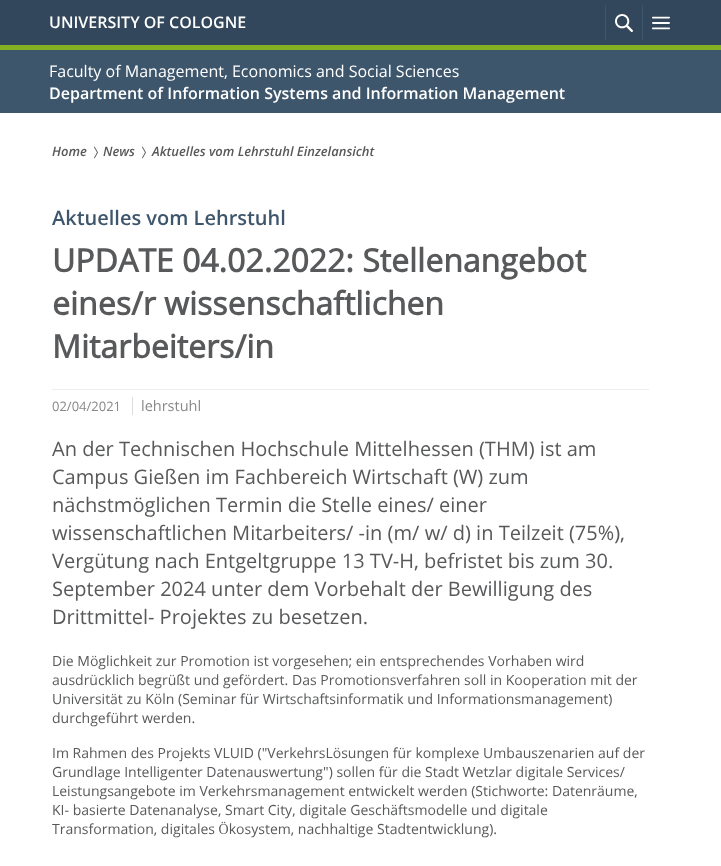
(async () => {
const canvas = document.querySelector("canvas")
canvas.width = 721
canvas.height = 866
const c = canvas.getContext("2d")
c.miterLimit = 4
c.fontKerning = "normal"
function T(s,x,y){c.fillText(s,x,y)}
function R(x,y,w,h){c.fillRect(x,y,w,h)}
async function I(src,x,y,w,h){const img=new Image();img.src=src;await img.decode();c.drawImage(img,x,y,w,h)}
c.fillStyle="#fff"
R(0,0,721,866)
c.fillStyle="#3e566c"
R(0,50,721,63)
c.fillStyle="#32475b"
R(0,0,721,45)
c.fillStyle="#83b022"
R(0,45,721,5)
c.font="600 16px Open Sans"
c.fillStyle="#fff"
T("UNIVERSITY OF COLOGNE",49,28)
c.fillStyle="#3e566c"
R(605,5,1,35)
await I("1.png",615,14,18,18)
R(642,5,1,35)
await I("2.png",652,16,18,14)
c.font="16px Open Sans"
c.fillStyle="#fff"
T("Faculty of Management, Economics and Social Sciences",49,77)
c.font="600 16px Open Sans"
T("Department of Information Systems and Information Management",49,99)
c.font="italic 600 13px Open Sans"
c.fillStyle="#58595b"
T("Home",52,156)
await I("3.png",94,146,4,13)
T("News",103,156)
await I("3.png",142,146,4,13)
T("Aktuelles vom Lehrstuhl Einzelansicht",152,156)
c.font="600 20px Open Sans"
c.fillStyle="#3e566c"
T("Aktuelles vom Lehrstuhl",52,225)
c.font="bold 32px Open Sans"
c.fillStyle="#58595b"
T("UPDATE 04.02.2022: Stellenangebot",52,272)
T("eines/r wissenschaftlichen",52,315)
T("Mitarbeiters/in",52,358)
c.fillStyle="#eee"
R(52,389,597,1)
c.font="13px Open Sans"
c.fillStyle="#888"
T("02/04/2021",52,411)
c.fillStyle="#ddd"
R(132,397,1,18)
c.font="14.5px Open Sans"
c.fillStyle="#888"
T("lehrstuhl",141,411)
c.font="20px Open Sans"
c.fillStyle="#58595b"
T("An der Technischen Hochschule Mittelhessen (THM) ist am",52,456)
T("Campus Gießen im Fachbereich Wirtschaft (W) zum",52,484)
T("nächstmöglichen Termin die Stelle eines/ einer",52,512)
T("wissenschaftlichen Mitarbeiters/ -in (m/ w/ d) in Teilzeit (75%),",52,540)
T("Vergütung nach Entgeltgruppe 13 TV-H, befristet bis zum 30.",52,568)
T("September 2024 unter dem Vorbehalt der Bewilligung des",52,596)
T("Drittmittel- Projektes zu besetzen.",52,624)
c.font="14px Open Sans"
T("Die Möglichkeit zur Promotion ist vorgesehen; ein entsprechendes Vorhaben wird",52,666)
T("ausdrücklich begrüßt und gefördert. Das Promotionsverfahren soll in Kooperation mit der",52,685)
T("Universität zu Köln (Seminar für Wirtschaftsinformatik und Informationsmanagement)",52,704)
T("durchgeführt werden.",52,723)
T("Im Rahmen des Projekts VLUID (\"VerkehrsLösungen für komplexe Umbauszenarien auf der",52,758)
T("Grundlage Intelligenter Datenauswertung\") sollen für die Stadt Wetzlar digitale Services/",52,777)
T("Leistungsangebote im Verkehrsmanagement entwickelt werden (Stichworte: Datenräume,",52,796)
T("KI- basierte Datenanalyse, Smart City, digitale Geschäftsmodelle und digitale",52,815)
T("Transformation, digitales Ökosystem, nachhaltige Stadtentwicklung).",52,834)
})()
